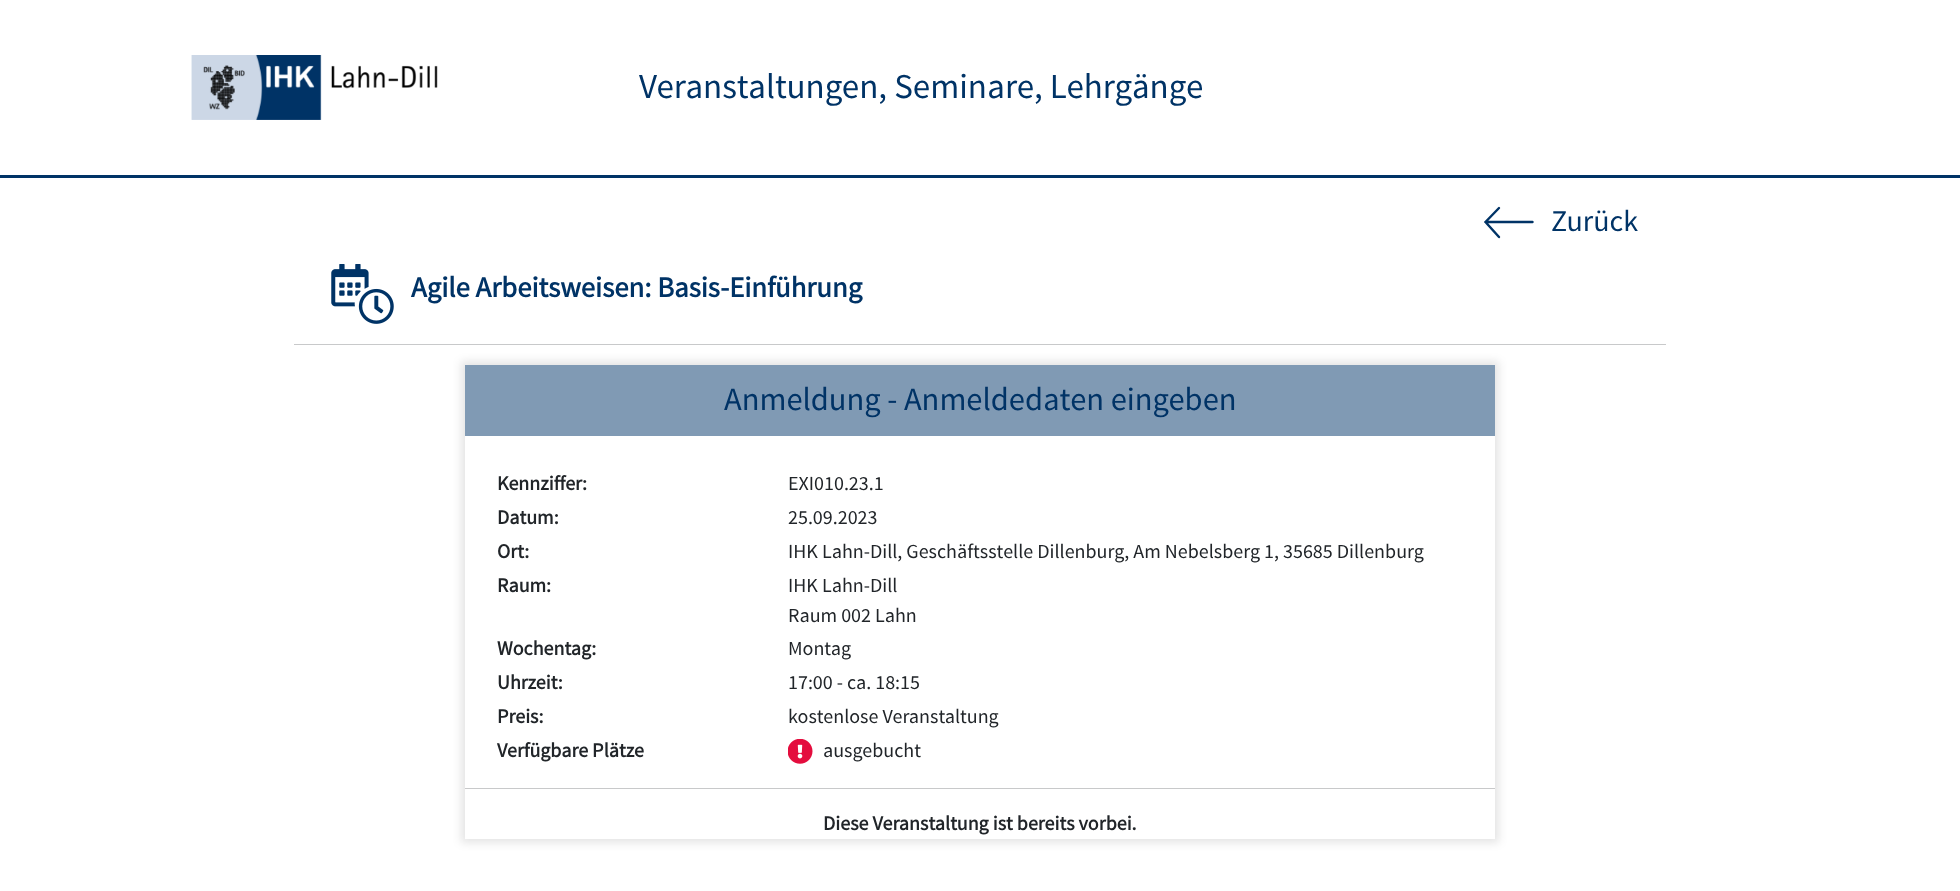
(async () => {
const canvas = document.querySelector("canvas")
canvas.width = 1960
canvas.height = 891
const c = canvas.getContext("2d")
c.miterLimit = 4
c.fontKerning = "normal"
function T(s,x,y){c.fillText(s,x,y)}
function R(x,y,w,h){c.fillRect(x,y,w,h)}
async function I(src,x,y,w,h){const img=new Image();img.src=src;await img.decode();c.drawImage(img,x,y,w,h)}
let path
c.fillStyle="#fff"
R(0,0,1960,891)
c.fillStyle="#036"
R(0,175,1960,3)
await I("1.png",191,55,247,65)
c.font="35px Source Sans Pro"
T("Veranstaltungen, Seminare, Lehrgänge",639,98)
path = new Path2D("M1499 237l-13.5-15l13.5-14m-13.5 14h47")
c.strokeStyle="#036"
c.lineWidth=2.4
c.lineCap="round"
c.stroke(path)
c.font="30px Source Sans Pro"
T("Zurück",1551,231)
await I("2.png",331,264,63,60)
c.font="bold 28.75px Source Sans Pro"
T("Agile Arbeitsweisen: Basis-Einführung",411,297)
c.fillStyle="#c8c9ca"
R(294,344,1372,1)
c.save()
path = new Path2D("M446 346h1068v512h-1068zm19 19h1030v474h-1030z")
c.clip(path,"evenodd")
c.fillStyle="#0000001a"
c.filter="blur(4.5px)"
c.beginPath()
c.rect(461,361,1038,482)
c.fill()
c.filter="none"
c.restore()
c.fillStyle="#809ab4"
R(465,365,1030,71)
c.font="32.5px Source Sans Pro"
c.fillStyle="#036"
T("Anmeldung - Anmeldedaten eingeben",724,410)
c.font="bold 20px Source Sans Pro"
c.fillStyle="#212529"
T("Kennziffer:",497,490)
c.font="20px Source Sans Pro"
T("EXI010.23.1",788,490)
c.font="bold 20px Source Sans Pro"
T("Datum:",497,524)
c.font="20px Source Sans Pro"
T("25.09.2023",788,524)
c.font="bold 20px Source Sans Pro"
T("Ort:",497,558)
c.font="20px Source Sans Pro"
T("IHK Lahn-Dill, Geschäftsstelle Dillenburg, Am Nebelsberg 1, 35685 Dillenburg",788,558)
c.font="bold 20px Source Sans Pro"
T("Raum:",497,592)
c.font="20px Source Sans Pro"
T("IHK Lahn-Dill",788,592)
T("Raum 002 Lahn",788,622)
c.font="bold 20px Source Sans Pro"
T("Wochentag:",497,655)
c.font="20px Source Sans Pro"
T("Montag",788,655)
c.font="bold 20px Source Sans Pro"
T("Uhrzeit:",497,689)
c.font="20px Source Sans Pro"
T("17:00 - ca. 18:15",788,689)
c.font="bold 20px Source Sans Pro"
T("Preis:",497,723)
c.font="20px Source Sans Pro"
T("kostenlose Veranstaltung",788,723)
c.font="bold 20px Source Sans Pro"
T("Verfügbare Plätze",497,757)
await I("3.png",788,739,25,25)
c.font="20px Source Sans Pro"
T("ausgebucht",823,757)
c.fillStyle="#c8c9ca"
R(465,788,1030,1)
c.font="bold 20px Source Sans Pro"
c.fillStyle="#212529"
T("Diese Veranstaltung ist bereits vorbei.",823,830)
})()
